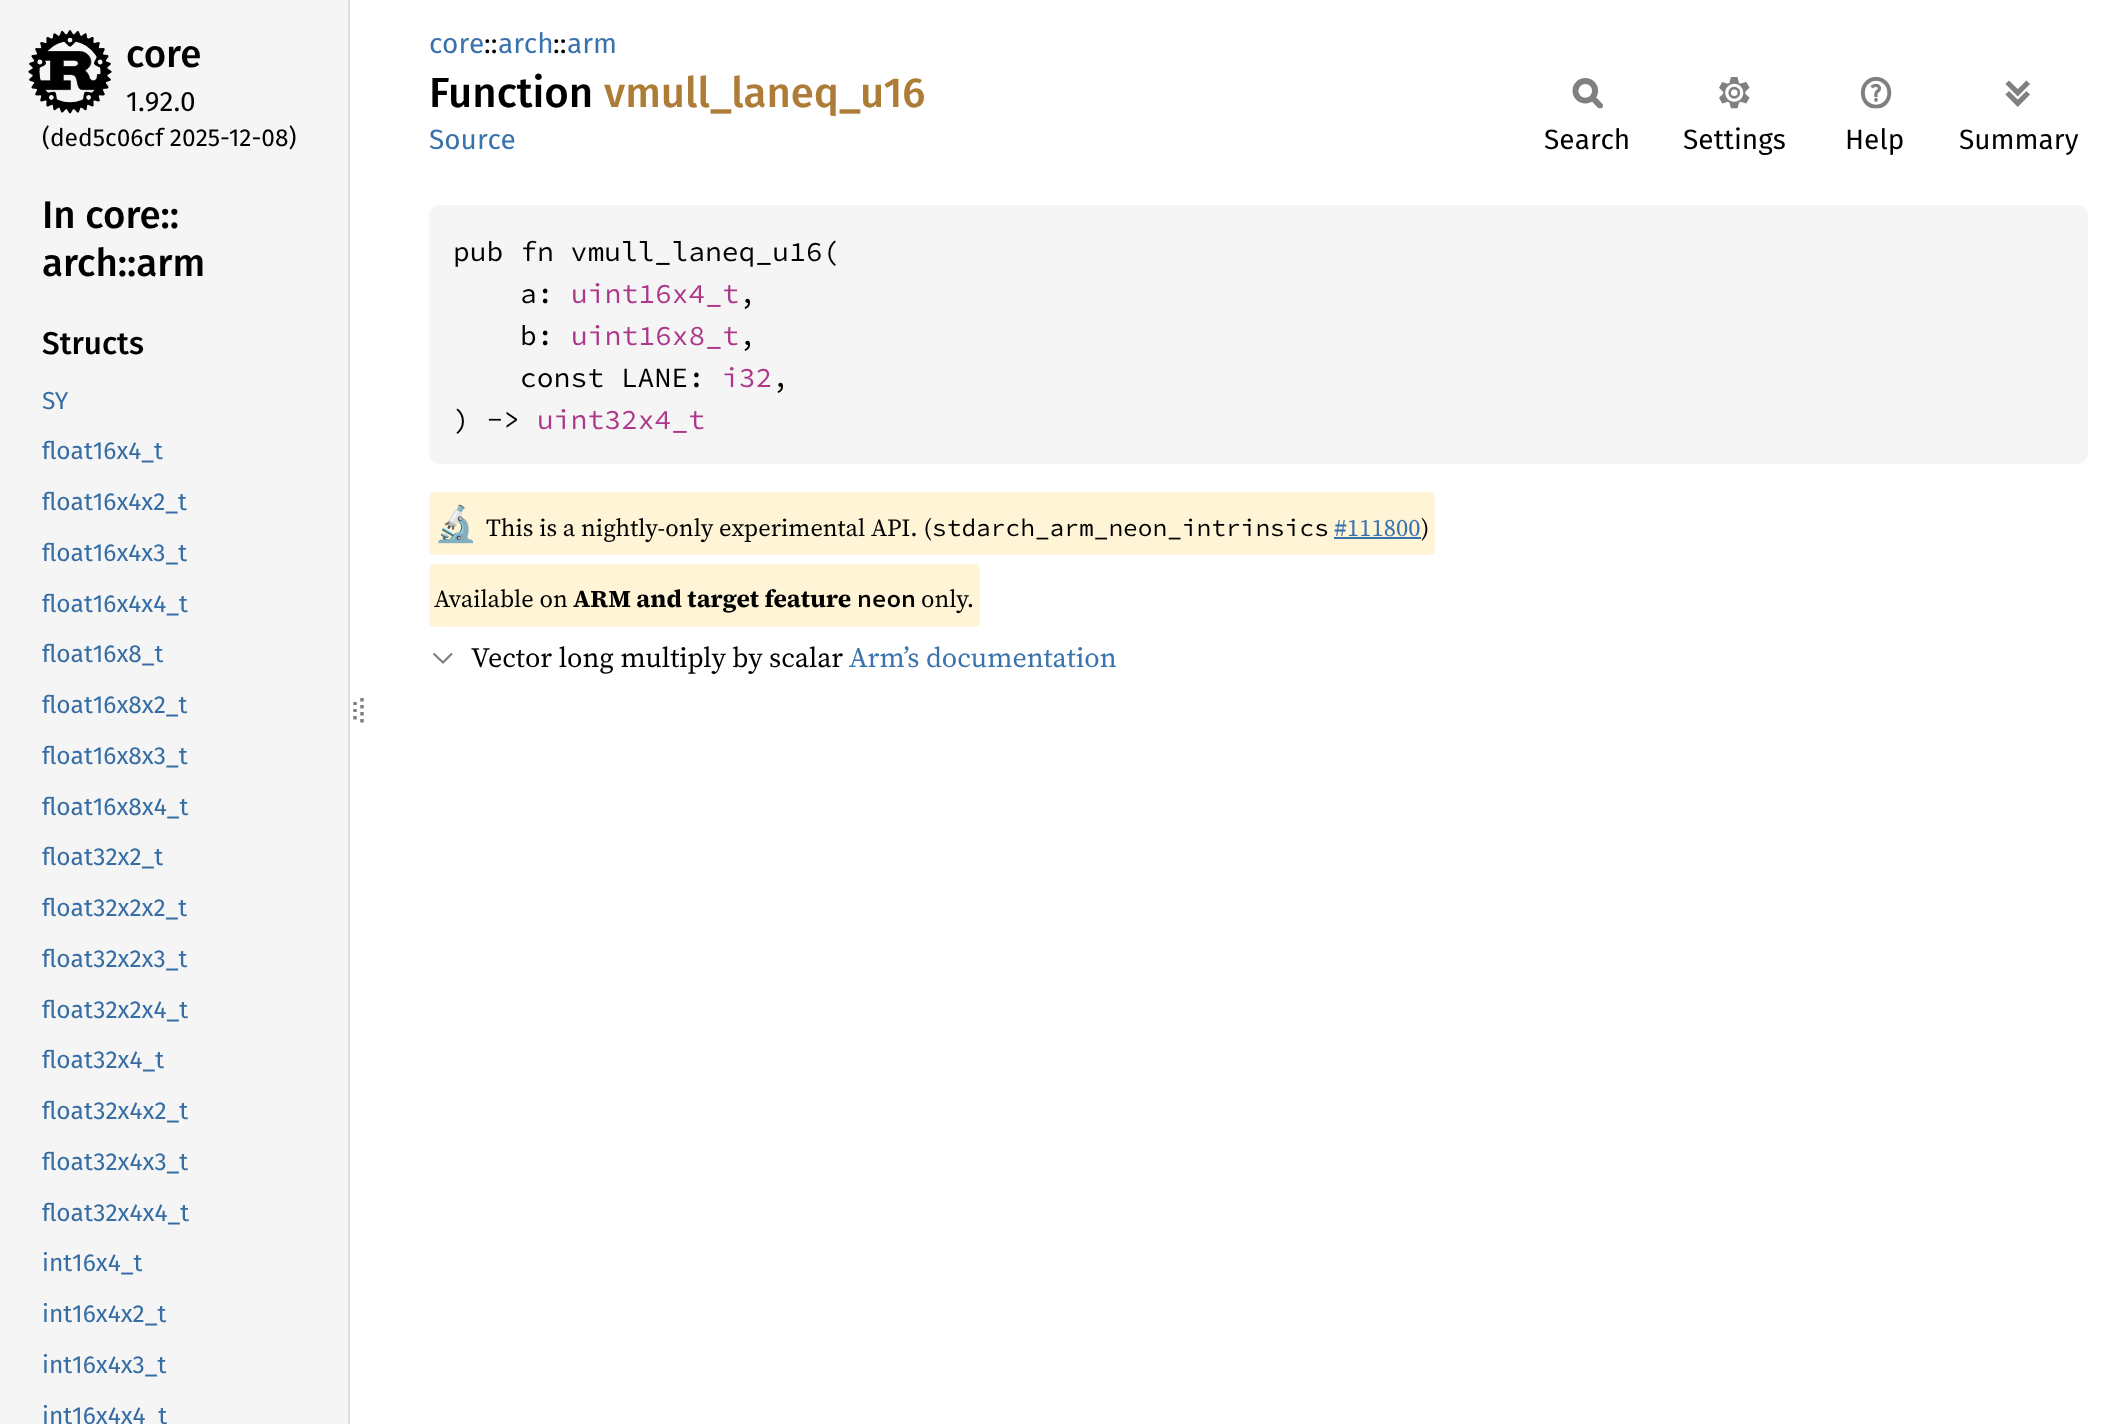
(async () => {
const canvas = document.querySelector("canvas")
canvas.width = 2114
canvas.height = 1424
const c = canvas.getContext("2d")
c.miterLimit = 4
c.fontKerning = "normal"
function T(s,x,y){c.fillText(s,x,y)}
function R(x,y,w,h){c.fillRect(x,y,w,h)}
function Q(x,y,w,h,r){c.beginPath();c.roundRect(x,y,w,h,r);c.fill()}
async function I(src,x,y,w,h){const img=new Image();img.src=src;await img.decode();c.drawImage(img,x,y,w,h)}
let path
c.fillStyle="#fff"
R(0,0,2114,1424)
c.fillStyle="#f5f5f5"
R(0,0,348,1424)
c.fillStyle="#ddd"
R(348,0,2,1424)
await I("1.png",28,30,84,84)
c.font="500 38.5px Fira Sans"
c.fillStyle="#000"
T("core",126,67)
c.font="28px Fira Sans"
T("1.92.0",126,111)
c.font="24.5px Fira Sans"
T("(ded5c06cf 2025-12-08)",42,146)
c.font="500 38.5px Fira Sans"
T("In core::",42,228)
T("arch::arm",42,276)
c.font="500 31.5px Fira Sans"
T("Structs",42,354)
c.font="24.5px Fira Sans"
c.fillStyle="#356da4"
T("SY",42,409)
T("float16x4_t",42,459)
T("float16x4x2_t",42,510)
T("float16x4x3_t",42,561)
T("float16x4x4_t",42,612)
T("float16x8_t",42,662)
T("float16x8x2_t",42,713)
T("float16x8x3_t",42,764)
T("float16x8x4_t",42,815)
T("float32x2_t",42,865)
T("float32x2x2_t",42,916)
T("float32x2x3_t",42,967)
T("float32x2x4_t",42,1018)
T("float32x4_t",42,1068)
T("float32x4x2_t",42,1119)
T("float32x4x3_t",42,1170)
T("float32x4x4_t",42,1221)
T("int16x4_t",42,1271)
T("int16x4x2_t",42,1322)
T("int16x4x3_t",42,1373)
T("int16x4x4_t",42,1424)
path = new Path2D("M355 702v3m0 4v3m0 4v3.5")
c.strokeStyle="#808080"
c.lineWidth=3.5
c.stroke(path)
path = new Path2D("M362 698v28")
c.setLineDash([3.5,3.5])
c.stroke(path)
c.font="28px Fira Sans"
c.fillStyle="#3873ad"
T("core",429,53)
c.fillStyle="#000"
T("::",484,53)
c.fillStyle="#3873ad"
T("arch",498,53)
c.fillStyle="#000"
T("::",553,53)
c.fillStyle="#3873ad"
T("arm",567,53)
c.font="500 42px Fira Sans"
c.fillStyle="#000"
T("Function",429,107)
c.fillStyle="#ad7c37"
T("vmull_laneq_u16",604,107)
c.font="28px Fira Sans"
c.fillStyle="#3873ad"
T("Source",429,149)
await I("2.png",1572,78,31,31)
c.fillStyle="#000"
T("Search",1544,149)
await I("3.png",1719,77,31,32)
T("Settings",1683,149)
await I("4.png",1860,77,32,32)
T("Help",1845,149)
await I("5.png",2005,80,25,27)
T("Summary",1959,149)
c.fillStyle="#f5f5f5"
Q(429,205,1659,259,11)
c.font="28px Source Code Pro"
c.fillStyle="#000"
T("pub fn vmull_laneq_u16(",453,261)
T("a:",520,303)
c.fillStyle="#ad378a"
T("uint16x4_t",571,303)
c.fillStyle="#000"
T(",",739,303)
T("b:",520,345)
c.fillStyle="#ad378a"
T("uint16x8_t",571,345)
c.fillStyle="#000"
T(",",739,345)
T("const LANE:",520,387)
c.fillStyle="#ad378a"
T("i32",722,387)
c.fillStyle="#000"
T(",",772,387)
T(") ->",453,429)
c.fillStyle="#ad378a"
T("uint32x4_t",537,429)
c.fillStyle="#fff5d6"
Q(429,492,1006,63,5)
c.font="35px Noto Color Emoji"
c.fillStyle="#000"
T("🔬",434,536)
c.font="24.5px 'Source Serif 4'"
T("This is a nightly-only experimental API. (",486,536)
c.font="24.5px Source Code Pro"
T("stdarch_arm_neon_intrinsics",932,536)
c.font="24.5px 'Source Serif 4'"
c.fillStyle="#3873ad"
T("#111800",1334,536)
c.fillStyle="#000"
T(")",1421,536)
c.fillStyle="#3873ad"
R(1334,537,87,2)
c.fillStyle="#fff5d6"
Q(429,564,551,63,5)
c.fillStyle="#000"
T("Available on",434,607)
c.font="bold 24.5px 'Source Serif 4'"
T("ARM and target feature",573,607)
c.font="600 24.5px Source Code Pro"
T("neon",857,607)
c.font="24.5px 'Source Serif 4'"
T("only.",921,607)
path = new Path2D("M433.5 653.5l9.5 9l9-9")
c.lineWidth=2.3
c.setLineDash([])
c.stroke(path)
c.font="28px 'Source Serif 4'"
T("Vector long multiply by scalar",471,667)
c.fillStyle="#3873ad"
T("Arm’s documentation",849,667)
})()
